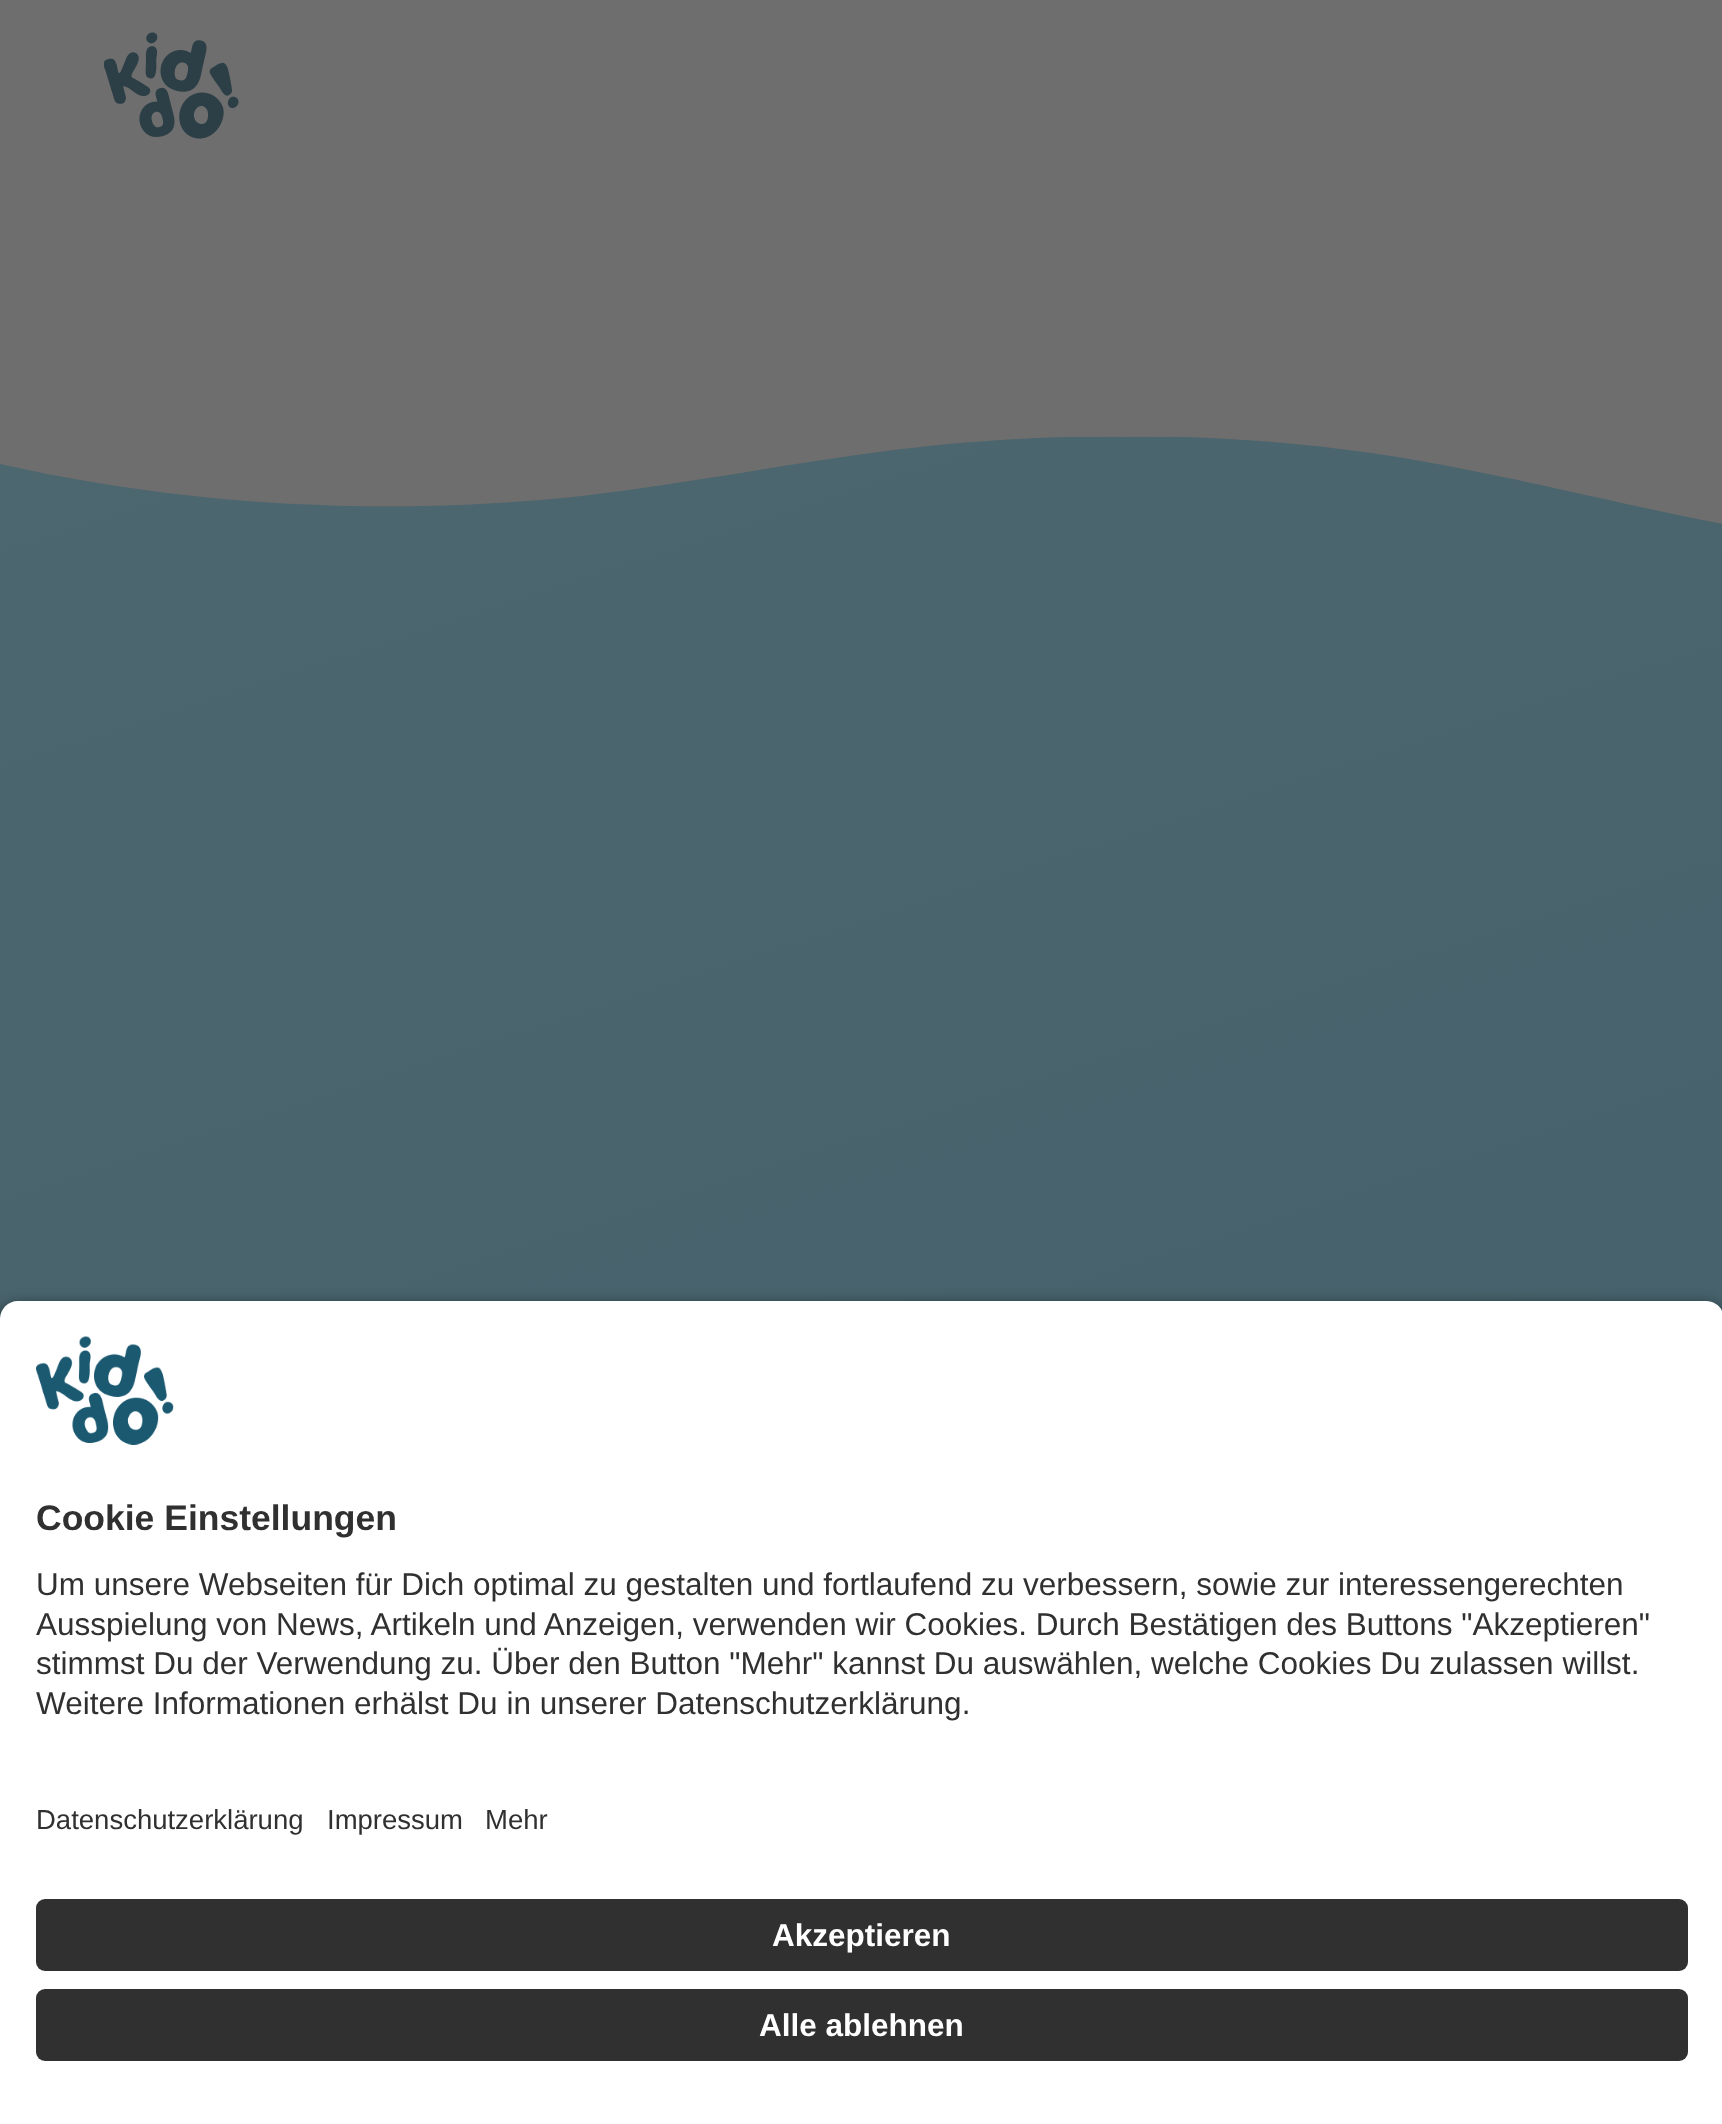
(async () => {
const canvas = document.querySelector("canvas")
canvas.width = 1722
canvas.height = 2124
const c = canvas.getContext("2d")
c.miterLimit = 4
c.fontKerning = "normal"
function T(s,x,y){c.fillText(s,x,y)}
function R(x,y,w,h){c.fillRect(x,y,w,h)}
function Q(x,y,w,h,r){c.beginPath();c.roundRect(x,y,w,h,r);c.fill()}
async function I(src,x,y,w,h){const img=new Image();img.src=src;await img.decode();c.drawImage(img,x,y,w,h)}
let gradient, path
c.fillStyle="#6e6e6e"
R(0,0,1722,2124)
await I("1.png",104,32,135,107)
gradient = c.createLinearGradient(263,-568,1191,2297)
gradient.addColorStop(0,"#4f6a70")
gradient.addColorStop(.91,"#45606b")
c.fillStyle = gradient
R(0,437,1722,882)
c.fillStyle="#6e6e6e"
path = new Path2D("M582 496c105-12 207-33 312-46c149-18 305-19 454 0c145 18 295 63 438 85c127 20 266 29 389 3v-104h-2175v30c186 42 387 53 582 32z")
c.fill(path)
c.fillStyle="#000000cc"
c.filter="blur(8px)"
c.beginPath()
c.roundRect(0,1307,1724,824,18)
c.fill()
c.filter="none"
c.fillStyle="#fff"
path = new Path2D("M18 1301h1688c10 0 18 8 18 18v450h-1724v-450c0-10 8-18 18-18z")
c.fill(path)
await I("2.png",36,1336,138,109)
c.font="bold 35.5px Liberation Sans"
c.fillStyle="#303030"
T("Cookie Einstellungen",36,1530)
c.font="31.5px Liberation Sans"
T("Um unsere Webseiten für Dich optimal zu gestalten und fortlaufend zu verbessern, sowie zur interessengerechten",36,1595)
T("Ausspielung von News, Artikeln und Anzeigen, verwenden wir Cookies. Durch Bestätigen des Buttons \"Akzeptieren\"",36,1635)
T("stimmst Du der Verwendung zu. Über den Button \"Mehr\" kannst Du auswählen, welche Cookies Du zulassen willst.",36,1674)
T("Weitere Informationen erhälst Du in unserer Datenschutzerklärung.",36,1714)
c.fillStyle="#fff"
R(0,1769,1722,355)
c.font="27.5px Liberation Sans"
c.fillStyle="#303030"
T("Datenschutzerklärung",36,1829)
T("Impressum",327,1829)
T("Mehr",485,1829)
Q(36,1899,1652,72,9)
c.font="bold 31.5px Liberation Sans"
c.fillStyle="#fff"
T("Akzeptieren",772,1946)
c.fillStyle="#303030"
Q(36,1989,1652,72,9)
c.fillStyle="#fff"
T("Alle ablehnen",759,2036)
})()
